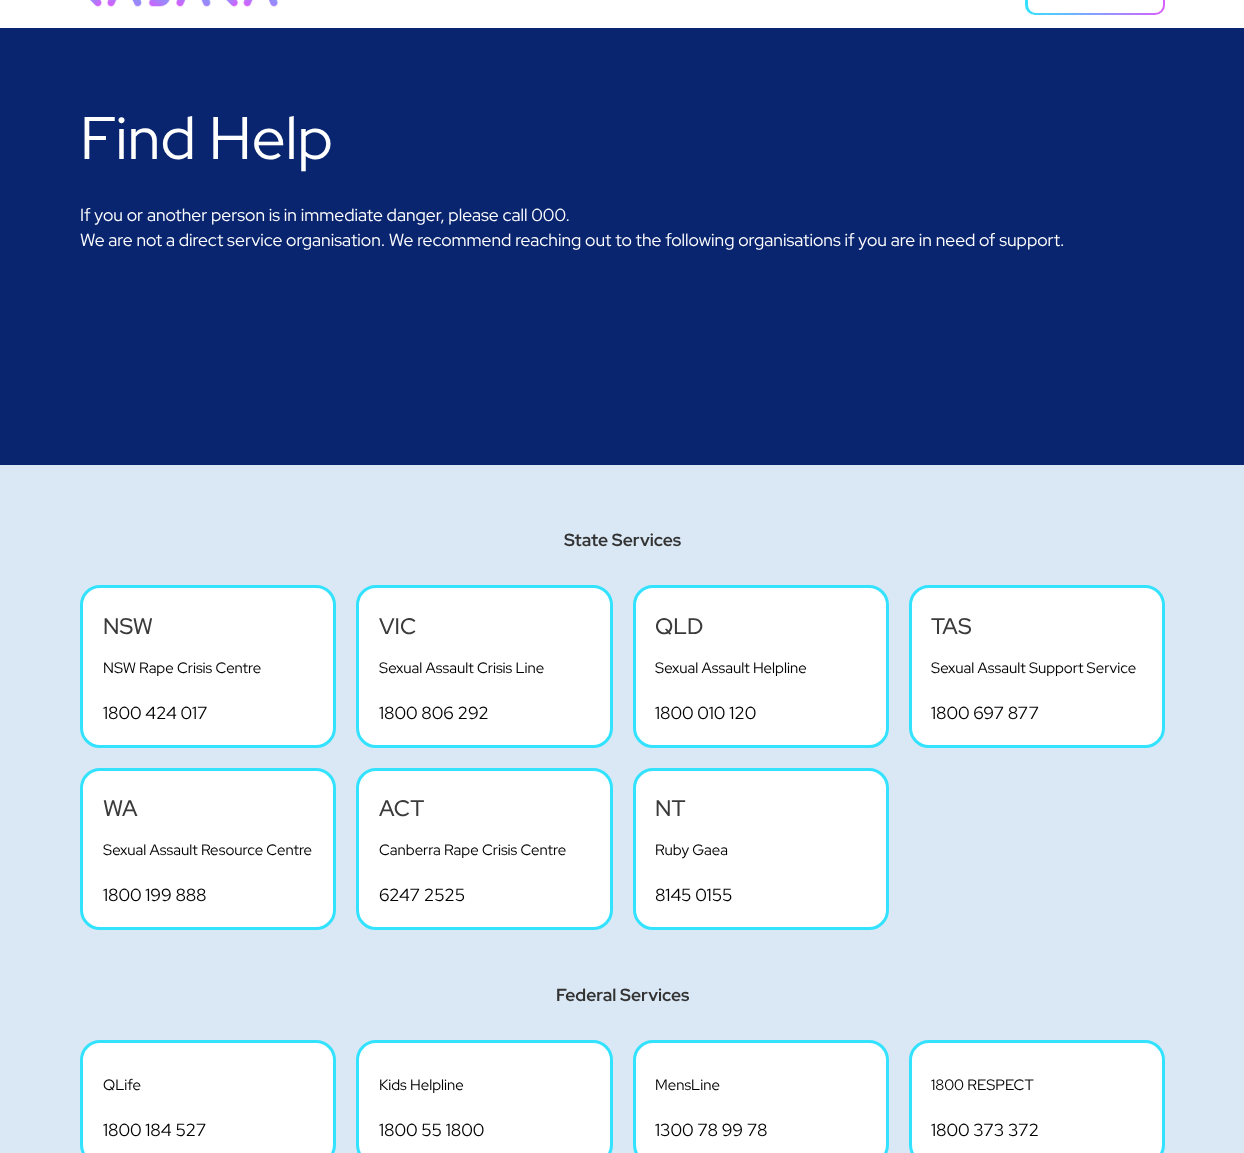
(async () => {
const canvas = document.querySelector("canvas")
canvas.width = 1244
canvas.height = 1153
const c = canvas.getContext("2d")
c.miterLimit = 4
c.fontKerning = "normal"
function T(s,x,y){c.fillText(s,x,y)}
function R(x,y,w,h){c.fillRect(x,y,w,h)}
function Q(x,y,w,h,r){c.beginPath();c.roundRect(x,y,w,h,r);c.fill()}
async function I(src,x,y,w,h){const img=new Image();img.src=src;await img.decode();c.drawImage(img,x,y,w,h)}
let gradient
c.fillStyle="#fff"
R(0,0,1244,1153)
await I("1.png",90,0,188,7)
gradient = c.createLinearGradient(1025,-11,1165,-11)
gradient.addColorStop(0,"#33e2fe")
gradient.addColorStop(1,"#d85dfe")
c.fillStyle = gradient
Q(1025,-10,140,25,10)
c.fillStyle="#fff"
Q(1028,-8,135,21,8)
c.fillStyle="#0a256f"
R(0,28,1244,437)
c.font="60px Red Hat Display"
c.fillStyle="#fff"
T("Find Help",80,159)
c.font="17.5px Red Hat Display"
T("If you or another person is in immediate danger, please call 000.",80,221)
T("We are not a direct service organisation. We recommend reaching out to the following organisations if you are in need of support.",80,246)
c.fillStyle="#dae8f5"
R(0,465,1244,688)
c.font="bold 17.5px Red Hat Display"
c.fillStyle="#333"
T("State Services",564,546)
c.fillStyle="#fff"
c.beginPath()
c.roundRect(81.5,586.5,253,160,18.5)
c.fill()
c.strokeStyle="#33e2fe"
c.lineWidth=3
c.stroke()
c.font="500 22.5px Red Hat Display"
c.fillStyle="#3b3b3b"
T("NSW",103,634)
c.font="15px Red Hat Display"
c.fillStyle="#000"
T("NSW Rape Crisis Centre",103,673)
c.font="17.5px Red Hat Display"
T("1800 424 017",103,719)
c.fillStyle="#fff"
c.beginPath()
c.roundRect(357.5,586.5,254,160,18.5)
c.fill()
c.stroke()
c.font="500 22.5px Red Hat Display"
c.fillStyle="#3b3b3b"
T("VIC",379,634)
c.font="15px Red Hat Display"
c.fillStyle="#000"
T("Sexual Assault Crisis Line",379,673)
c.font="17.5px Red Hat Display"
T("1800 806 292",379,719)
c.fillStyle="#fff"
c.beginPath()
c.roundRect(634.5,586.5,253,160,18.5)
c.fill()
c.stroke()
c.font="500 22.5px Red Hat Display"
c.fillStyle="#3b3b3b"
T("QLD",655,634)
c.font="15px Red Hat Display"
c.fillStyle="#000"
T("Sexual Assault Helpline",655,673)
c.font="17.5px Red Hat Display"
T("1800 010 120",655,719)
c.fillStyle="#fff"
c.beginPath()
c.roundRect(910.5,586.5,253,160,18.5)
c.fill()
c.stroke()
c.font="500 22.5px Red Hat Display"
c.fillStyle="#3b3b3b"
T("TAS",931,634)
c.font="15px Red Hat Display"
c.fillStyle="#000"
T("Sexual Assault Support Service",931,673)
c.font="17.5px Red Hat Display"
T("1800 697 877",931,719)
c.fillStyle="#fff"
c.beginPath()
c.roundRect(81.5,769.5,253,159,18.5)
c.fill()
c.stroke()
c.font="500 22.5px Red Hat Display"
c.fillStyle="#3b3b3b"
T("WA",103,816)
c.font="15px Red Hat Display"
c.fillStyle="#000"
T("Sexual Assault Resource Centre",103,855)
c.font="17.5px Red Hat Display"
T("1800 199 888",103,901)
c.fillStyle="#fff"
c.beginPath()
c.roundRect(357.5,769.5,254,159,18.5)
c.fill()
c.stroke()
c.font="500 22.5px Red Hat Display"
c.fillStyle="#3b3b3b"
T("ACT",379,816)
c.font="15px Red Hat Display"
c.fillStyle="#000"
T("Canberra Rape Crisis Centre",379,855)
c.font="17.5px Red Hat Display"
T("6247 2525",379,901)
c.fillStyle="#fff"
c.beginPath()
c.roundRect(634.5,769.5,253,159,18.5)
c.fill()
c.stroke()
c.font="500 22.5px Red Hat Display"
c.fillStyle="#3b3b3b"
T("NT",655,816)
c.font="15px Red Hat Display"
c.fillStyle="#000"
T("Ruby Gaea",655,855)
c.font="17.5px Red Hat Display"
T("8145 0155",655,901)
c.font="bold 17.5px Red Hat Display"
c.fillStyle="#333"
T("Federal Services",556,1001)
c.fillStyle="#fff"
c.beginPath()
c.roundRect(81.5,1041.5,253,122,18.5)
c.fill()
c.stroke()
c.font="15px Red Hat Display"
c.fillStyle="#000"
T("QLife",103,1090)
c.font="17.5px Red Hat Display"
T("1800 184 527",103,1136)
c.fillStyle="#fff"
c.beginPath()
c.roundRect(357.5,1041.5,254,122,18.5)
c.fill()
c.stroke()
c.font="15px Red Hat Display"
c.fillStyle="#000"
T("Kids Helpline",379,1090)
c.font="17.5px Red Hat Display"
T("1800 55 1800",379,1136)
c.fillStyle="#fff"
c.beginPath()
c.roundRect(634.5,1041.5,253,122,18.5)
c.fill()
c.stroke()
c.font="15px Red Hat Display"
c.fillStyle="#000"
T("MensLine",655,1090)
c.font="17.5px Red Hat Display"
T("1300 78 99 78",655,1136)
c.fillStyle="#fff"
c.beginPath()
c.roundRect(910.5,1041.5,253,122,18.5)
c.fill()
c.stroke()
c.font="15px Red Hat Display"
c.fillStyle="#000"
T("1800 RESPECT",931,1090)
c.font="17.5px Red Hat Display"
T("1800 373 372",931,1136)
})()
